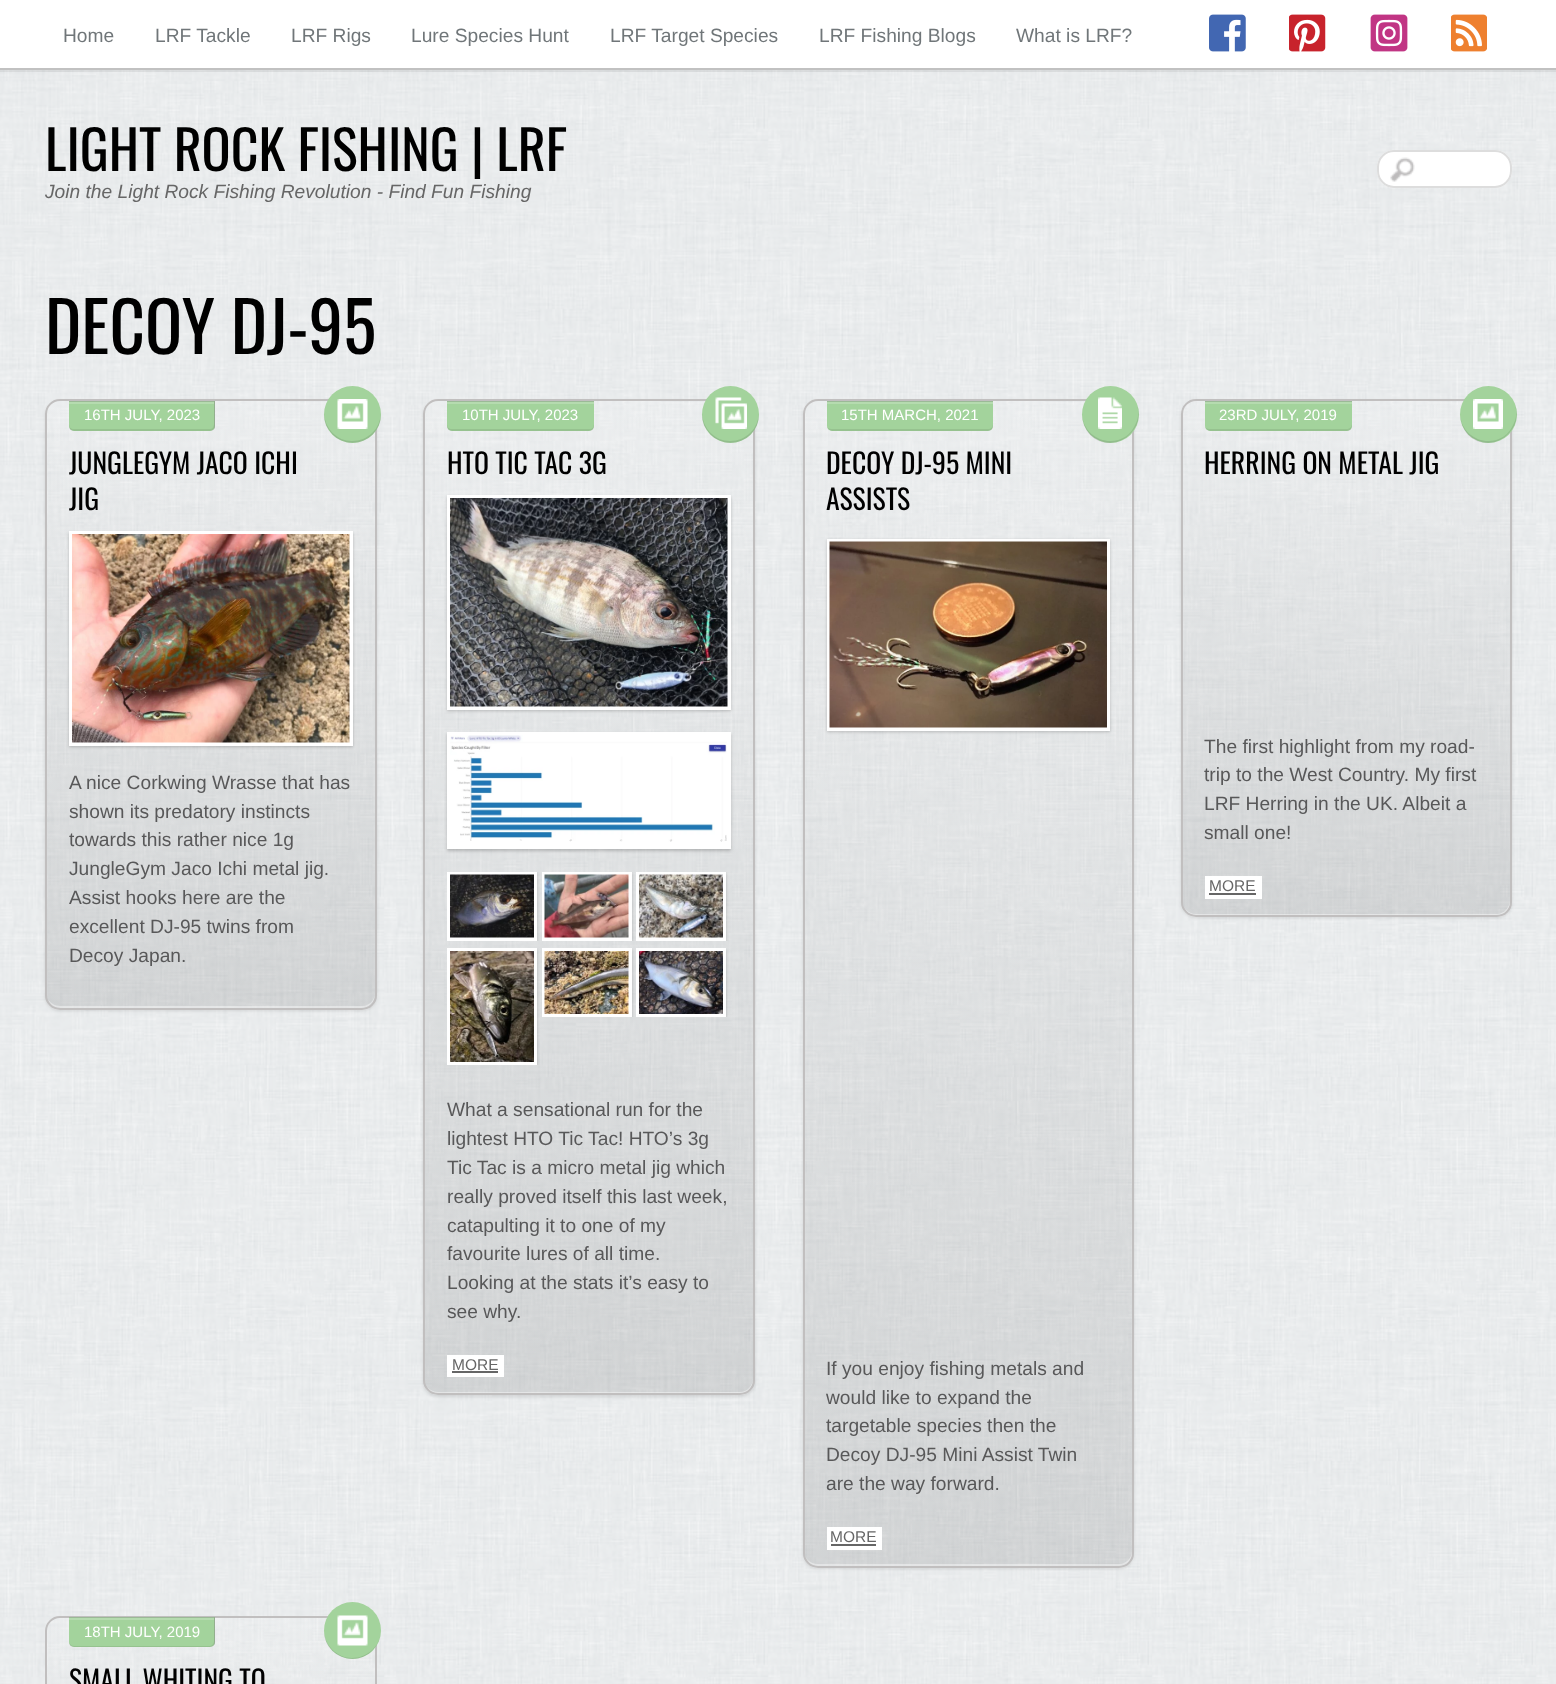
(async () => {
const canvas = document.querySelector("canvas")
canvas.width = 1556
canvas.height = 1684
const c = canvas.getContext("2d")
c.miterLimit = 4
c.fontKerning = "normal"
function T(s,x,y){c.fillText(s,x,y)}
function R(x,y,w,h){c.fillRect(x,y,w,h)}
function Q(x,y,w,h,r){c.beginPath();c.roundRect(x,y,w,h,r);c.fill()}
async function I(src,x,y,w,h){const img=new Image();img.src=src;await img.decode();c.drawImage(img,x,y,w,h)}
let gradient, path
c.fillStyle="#dadee0"
R(0,0,1556,1684)
await I("1.png",0,70,1556,1614)
c.fillStyle="#00000012"
R(0,70,1556,2)
c.fillStyle="#fff"
R(0,0,1556,68)
c.fillStyle="#c1c1c1"
R(0,68,1556,2)
c.font="19.2px Liberation Sans"
c.fillStyle="#707679"
T("Home",63,42)
T("LRF Tackle",155,42)
T("LRF Rigs",291,42)
T("Lure Species Hunt",411,42)
T("LRF Target Species",610,42)
T("LRF Fishing Blogs",819,42)
T("What is LRF?",1016,42)
await I("2.png",1209,14,37,38)
await I("3.png",1289,14,37,38)
await I("4.png",1370,14,38,38)
await I("5.png",1451,14,36,38)
c.font="54px Oswald"
c.fillStyle="#000"
T("LIGHT ROCK FISHING | LRF",45,171)
c.font="italic 19.2px Liberation Sans"
c.fillStyle="#666"
T("Join the Light Rock Fishing Revolution - Find Fun Fishing",45,198)
c.fillStyle="#fff"
Q(1377,150,135,38,17)
await I("6.png",1390,157,25,25)
c.beginPath()
c.roundRect(1378,151,133,36,16)
c.strokeStyle="#ddd"
c.lineWidth=2
c.stroke()
c.font="69px Oswald"
c.fillStyle="#000"
T("DECOY DJ-95",45,354)
c.save()
path = new Path2D("M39 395h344v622h-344zm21 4h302c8.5 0 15 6.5 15 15v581c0 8.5-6.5 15-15 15h-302c-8.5 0-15-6.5-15-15v-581c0-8.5 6.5-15 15-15z")
c.clip(path,"evenodd")
c.fillStyle="#0000001a"
c.filter="blur(1.5px)"
c.beginPath()
c.roundRect(45,401,332,610,15)
c.fill()
c.filter="none"
c.restore()
c.save()
c.beginPath()
c.roundRect(45,399,332,611,15)
c.clip()
gradient = c.createLinearGradient(211,401,211,1008)
gradient.addColorStop(0,"#ffffff1a")
gradient.addColorStop(1,"#0000001a")
c.fillStyle = gradient
R(45,401,332,607)
c.restore()
c.fillStyle="#ffffff66"
path = new Path2D("M48 1000c2 5 7 8 13 8h300c8 0 14-6 14-14v-1c0 7-6 13-13 13h-302c-5 0-9-3-12-6z")
c.fill(path)
c.beginPath()
c.roundRect(46,400,330,609,14)
c.strokeStyle="#c1bfbf"
c.stroke()
c.fillStyle="#a3d39c"
c.beginPath()
c.roundRect(69,401,146,30,[0,0,5,5])
c.fill()
c.fillStyle="#00000014"
path = new Path2D("M69 424v2c0 3 2 5 5 5h136c3 0 5-2 5-5v-25h-1v23c0 3-2 5-4 5h-136c-3 0-5-2-5-5z")
c.fill(path)
c.fillStyle="#00000033"
path = new Path2D("M69 402h145v27c1-1 1-2 1-3v-25h-146z")
c.fill(path)
c.fillStyle="#ffffff33"
path = new Path2D("M69 404h145v25c1-1 1-2 1-3v-25h-146z")
c.fill(path)
c.font="15px Liberation Sans"
c.fillStyle="#fff"
T("16TH JULY, 2023",84,420)
c.fillStyle="#a3d39c"
c.beginPath()
c.arc(352.5,414.5,28.5,0,7)
c.fill()
await I("7.png",337,399,31,30)
c.fillStyle="#0000001a"
path = new Path2D("M324 413c0 6 1 12 5 17c16 24 53 12 52-17c-1 16-13 28-29 28c-15 0-27-12-28-28z")
c.fill(path)
c.font="27.75px Oswald"
c.fillStyle="#000"
T("JUNGLEGYM JACO ICHI",69,474)
T("JIG",69,510)
c.fillStyle="#00000033"
c.filter="blur(1.5px)"
c.beginPath()
c.rect(69,533,284,214)
c.fill()
c.filter="none"
c.fillStyle="#fff"
R(69,531,284,215)
await I("8.png",72,534,278,209)
c.font="19.2px Liberation Sans"
c.fillStyle="#585859"
T("A nice Corkwing Wrasse that has",69,789)
T("shown its predatory instincts",69,818)
T("towards this rather nice 1g",69,846)
T("JungleGym Jaco Ichi metal jig.",69,875)
T("Assist hooks here are the",69,904)
T("excellent DJ-95 twins from",69,933)
T("Decoy Japan.",69,962)
c.save()
path = new Path2D("M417 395h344v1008h-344zm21 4h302c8.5 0 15 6.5 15 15v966c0 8.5-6.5 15-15 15h-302c-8.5 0-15-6.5-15-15v-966c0-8.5 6.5-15 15-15z")
c.clip(path,"evenodd")
c.fillStyle="#0000001a"
c.filter="blur(1.5px)"
c.beginPath()
c.roundRect(423,401,332,996,15)
c.fill()
c.filter="none"
c.restore()
c.save()
c.beginPath()
c.roundRect(423,399,332,996,15)
c.clip()
gradient = c.createLinearGradient(589,401,589,1394)
gradient.addColorStop(0,"#ffffff1a")
gradient.addColorStop(1,"#0000001a")
c.fillStyle = gradient
R(423,401,332,993)
c.restore()
c.fillStyle="#ffffff66"
path = new Path2D("M426 1385c2 5 7 9 13 9h300c8 0 14-6 14-14v-2c0 8-6 14-13 14h-302c-5 0-10-3-12-7z")
c.fill(path)
c.beginPath()
c.roundRect(424,400,330,994,14)
c.stroke()
c.fillStyle="#a3d39c"
c.beginPath()
c.roundRect(447,401,147,30,[0,0,5,5])
c.fill()
c.fillStyle="#00000014"
path = new Path2D("M447 424v2c0 3 2 5 5 5h137c3 0 5-2 5-5v-2c0 3-2 5-4 5h-138c-3 0-5-2-5-5z")
c.fill(path)
c.fillStyle="#82a97d"
R(447,401,147,1)
c.fillStyle="#ffffff33"
R(447,401,147,3)
c.font="15px Liberation Sans"
c.fillStyle="#fff"
T("10TH JULY, 2023",462,420)
c.fillStyle="#a3d39c"
c.beginPath()
c.arc(730.5,414.5,28.5,0,7)
c.fill()
await I("9.png",715,397,32,32)
c.fillStyle="#0000001a"
path = new Path2D("M702 413c0 6 1 12 5 17c16 24 53 12 52-17c-1 16-13 28-29 28c-15 0-27-12-28-28z")
c.fill(path)
c.font="27.75px Oswald"
c.fillStyle="#000"
T("HTO TIC TAC 3G",447,474)
c.fillStyle="#00000033"
c.filter="blur(1.5px)"
c.beginPath()
c.rect(447,497,284,214)
c.fill()
c.filter="none"
c.fillStyle="#fff"
R(447,495,284,215)
await I("10.png",450,498,278,209)
c.fillStyle="#00000033"
c.filter="blur(1.5px)"
c.beginPath()
c.rect(447,734,284,117)
c.fill()
c.filter="none"
c.fillStyle="#fff"
R(447,732,284,117)
await I("11.png",450,735,277,107)
c.save()
c.beginPath()
c.rect(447,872,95,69)
c.clip()
c.fillStyle="#00000033"
c.filter="blur(1.5px)"
c.beginPath()
c.rect(447,873,90,69)
c.fill()
c.filter="none"
c.restore()
R(447,872,90,69)
await I("12.png",450,874,84,64)
c.save()
c.beginPath()
c.rect(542,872,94,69)
c.clip()
c.fillStyle="#00000033"
c.filter="blur(1.5px)"
c.beginPath()
c.rect(542,873,90,69)
c.fill()
c.filter="none"
c.restore()
R(542,872,90,69)
await I("13.png",544,874,85,64)
c.save()
c.beginPath()
c.rect(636,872,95,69)
c.clip()
c.fillStyle="#00000033"
c.filter="blur(1.5px)"
c.beginPath()
c.rect(636,873,90,69)
c.fill()
c.filter="none"
c.restore()
R(636,872,90,69)
await I("14.png",639,874,84,64)
c.save()
c.beginPath()
c.rect(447,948,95,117)
c.clip()
c.fillStyle="#00000033"
c.filter="blur(1.5px)"
c.beginPath()
c.rect(447,950,90,117)
c.fill()
c.filter="none"
c.restore()
R(447,948,90,117)
await I("15.png",450,951,84,111)
c.save()
c.beginPath()
c.rect(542,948,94,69)
c.clip()
c.fillStyle="#00000033"
c.filter="blur(1.5px)"
c.beginPath()
c.rect(542,950,90,69)
c.fill()
c.filter="none"
c.restore()
R(542,948,90,69)
await I("16.png",544,951,85,63)
c.save()
c.beginPath()
c.rect(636,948,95,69)
c.clip()
c.fillStyle="#00000033"
c.filter="blur(1.5px)"
c.beginPath()
c.rect(636,950,90,69)
c.fill()
c.filter="none"
c.restore()
R(636,948,90,69)
await I("17.png",639,951,84,63)
c.font="19.2px Liberation Sans"
c.fillStyle="#585859"
T("What a sensational run for the",447,1116)
T("lightest HTO Tic Tac! HTO’s 3g",447,1145)
T("Tic Tac is a micro metal jig which",447,1174)
T("really proved itself this last week,",447,1203)
T("catapulting it to one of my",447,1232)
T("favourite lures of all time.",447,1260)
T("Looking at the stats it’s easy to",447,1289)
T("see why.",447,1318)
c.fillStyle="#fff"
R(447,1355,57,22)
c.font="15.5px Liberation Sans"
c.fillStyle="#666"
T("MORE",452,1370)
R(452,1371,46,2)
c.save()
path = new Path2D("M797 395h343v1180h-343zm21 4h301c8.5 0 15 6.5 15 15v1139c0 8.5-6.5 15-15 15h-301c-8.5 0-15-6.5-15-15v-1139c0-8.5 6.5-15 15-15z")
c.clip(path,"evenodd")
c.fillStyle="#0000001a"
c.filter="blur(1.5px)"
c.beginPath()
c.roundRect(803,401,331,1168,15)
c.fill()
c.filter="none"
c.restore()
c.save()
c.beginPath()
c.roundRect(803,399,331,1169,15)
c.clip()
gradient = c.createLinearGradient(968,401,968,1566)
gradient.addColorStop(0,"#ffffff1a")
gradient.addColorStop(1,"#0000001a")
c.fillStyle = gradient
R(803,401,331,1165)
c.restore()
c.fillStyle="#ffffff66"
path = new Path2D("M804 1551v1c0 8 6 14 14 14h301c8 0 14-6 14-14v-1137c0-2-1-4-1-6v3v1139c0 7-6 13-13 13h-301c-8 0-14-6-14-13z")
c.fill(path)
c.beginPath()
c.roundRect(804,400,329,1167,14)
c.stroke()
c.fillStyle="#a3d39c"
c.beginPath()
c.roundRect(827,401,166,30,[0,0,5,5])
c.fill()
c.fillStyle="#00000014"
path = new Path2D("M827 427c1 2 3 4 5 4h156c3 0 5-2 5-5v-2c0 3-2 5-5 5h-157c-1 0-3-1-4-2z")
c.fill(path)
c.fillStyle="#82a97d"
R(827,401,166,1)
c.fillStyle="#ffffff33"
R(827,401,166,3)
c.font="15px Liberation Sans"
c.fillStyle="#fff"
T("15TH MARCH, 2021",841,420)
c.fillStyle="#a3d39c"
c.beginPath()
c.arc(1110.5,414.5,28.5,0,7)
c.fill()
await I("18.png",1098,397,24,32)
c.fillStyle="#0000001a"
path = new Path2D("M1082 413c0 8 3 16 8 22c23 22 59-5 46-33c3 7 3 15 0 21c-11 29-53 21-54-10z")
c.fill(path)
c.font="27.75px Oswald"
c.fillStyle="#000"
T("DECOY DJ-95 MINI",826,474)
T("ASSISTS",826,510)
c.fillStyle="#00000033"
c.filter="blur(1.5px)"
c.beginPath()
c.rect(827,540,283,192)
c.fill()
c.filter="none"
c.fillStyle="#fff"
R(827,539,283,192)
await I("19.png",829,541,278,187)
c.font="19.2px Liberation Sans"
c.fillStyle="#585859"
T("If you enjoy fishing metals and",826,1375)
T("would like to expand the",826,1404)
T("targetable species then the",826,1432)
T("Decoy DJ-95 Mini Assist Twin",826,1461)
T("are the way forward.",826,1490)
c.fillStyle="#fff"
R(827,1527,55,23)
c.font="15.5px Liberation Sans"
c.fillStyle="#666"
T("MORE",830,1542)
R(831,1544,45,2)
c.save()
path = new Path2D("M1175 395h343v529h-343zm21 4h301c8.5 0 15 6.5 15 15v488c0 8.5-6.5 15-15 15h-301c-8.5 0-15-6.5-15-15v-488c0-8.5 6.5-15 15-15z")
c.clip(path,"evenodd")
c.fillStyle="#0000001a"
c.filter="blur(1.5px)"
c.beginPath()
c.roundRect(1181,401,331,517,15)
c.fill()
c.filter="none"
c.restore()
c.save()
c.beginPath()
c.roundRect(1181,399,331,518,15)
c.clip()
gradient = c.createLinearGradient(1346,401,1346,915)
gradient.addColorStop(0,"#ffffff1a")
gradient.addColorStop(1,"#0000001a")
c.fillStyle = gradient
R(1181,401,331,514)
c.restore()
c.fillStyle="#ffffff66"
path = new Path2D("M1182 900v1c0 8 6 14 14 14h301c8 0 14-6 14-14v-486c0-2-1-4-1-6v3v488c0 7-6 14-13 14h-301c-8 0-14-7-14-14z")
c.fill(path)
c.beginPath()
c.roundRect(1182,400,329,516,14)
c.stroke()
c.fillStyle="#a3d39c"
c.beginPath()
c.roundRect(1205,401,147,30,[0,0,5,5])
c.fill()
c.fillStyle="#00000014"
path = new Path2D("M1205 427c1 2 3 4 5 4h137c3 0 5-2 5-5v-2c0 3-3 5-5 5h-138c-1 0-3-1-4-2z")
c.fill(path)
c.fillStyle="#82a97d"
R(1205,401,147,1)
c.fillStyle="#ffffff33"
R(1205,401,147,3)
c.font="15px Liberation Sans"
c.fillStyle="#fff"
T("23RD JULY, 2019",1219,420)
c.fillStyle="#a3d39c"
c.beginPath()
c.arc(1488.5,414.5,28.5,0,7)
c.fill()
await I("20.png",1473,399,30,30)
c.fillStyle="#0000001a"
path = new Path2D("M1460 413c0 8 3 16 8 22c23 22 59-5 46-33c3 7 3 15 0 21c-11 29-53 21-54-10z")
c.fill(path)
c.font="27.75px Oswald"
c.fillStyle="#000"
T("HERRING ON METAL JIG",1204,474)
c.font="19.2px Liberation Sans"
c.fillStyle="#585859"
T("The first highlight from my road-",1204,753)
T("trip to the West Country. My first",1204,781)
T("LRF Herring in the UK. Albeit a",1204,810)
T("small one!",1204,839)
c.fillStyle="#fff"
R(1205,876,57,23)
c.font="15.5px Liberation Sans"
c.fillStyle="#666"
T("MORE",1209,891)
R(1209,893,47,2)
c.save()
c.beginPath()
c.roundRect(45,1616,332,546,15)
c.clip()
gradient = c.createLinearGradient(211,1617,211,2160)
gradient.addColorStop(0,"#ffffff1a")
gradient.addColorStop(1,"#0000001a")
c.fillStyle = gradient
R(45,1617,330,67)
c.restore()
c.beginPath()
c.roundRect(46,1617,330,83,14)
c.stroke()
c.fillStyle="#a3d39c"
c.beginPath()
c.roundRect(69,1617,146,30,[0,0,5,5])
c.fill()
c.fillStyle="#00000014"
path = new Path2D("M69 1641v1c0 3 2 5 5 5h136c3 0 5-2 5-5v-25h-1v24c0 2-2 5-4 5h-136c-3 0-5-3-5-5z")
c.fill(path)
c.fillStyle="#00000033"
path = new Path2D("M69 1618h145v27c1-1 1-2 1-3v-25h-146z")
c.fill(path)
c.fillStyle="#ffffff33"
path = new Path2D("M69 1620h145v25c1-1 1-2 1-3v-25h-146z")
c.fill(path)
c.font="15px Liberation Sans"
c.fillStyle="#fff"
T("18TH JULY, 2019",84,1637)
c.fillStyle="#a3d39c"
c.beginPath()
c.arc(352.5,1630.5,28.5,0,7)
c.fill()
await I("21.png",337,1615,31,31)
c.fillStyle="#0000001a"
path = new Path2D("M324 1630c-1 28 36 40 52 16c3-4 5-10 5-16c0 15-13 28-29 28c-15 0-28-13-28-28z")
c.fill(path)
c.font="27.75px Oswald"
c.fillStyle="#000"
T("SMALL WHITING TO",69,1691)
})()
